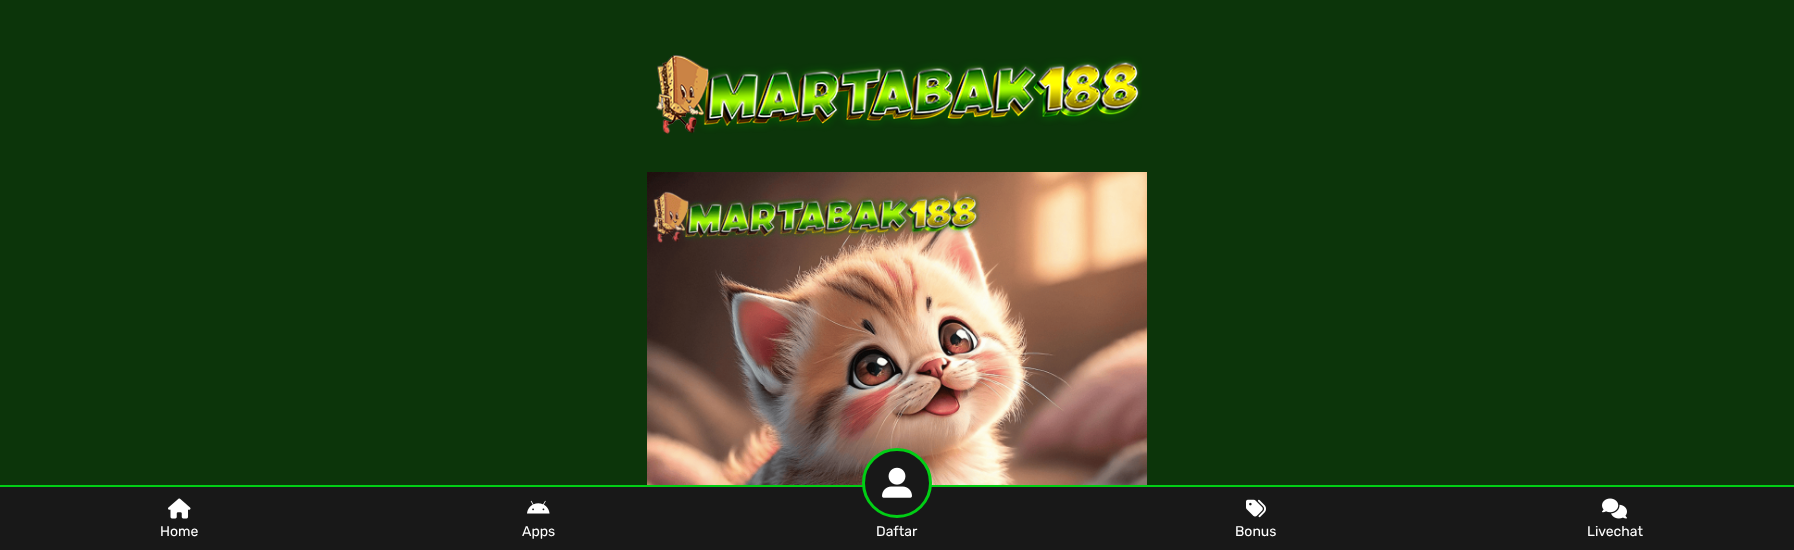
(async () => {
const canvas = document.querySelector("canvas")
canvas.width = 1794
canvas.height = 550
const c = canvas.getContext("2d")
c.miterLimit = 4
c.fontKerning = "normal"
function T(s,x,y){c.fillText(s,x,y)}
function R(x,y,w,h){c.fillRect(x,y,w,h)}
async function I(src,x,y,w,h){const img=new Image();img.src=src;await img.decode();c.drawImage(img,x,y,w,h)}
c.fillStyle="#0c350a"
R(0,0,1794,550)
await I("1.png",656,55,486,79)
await I("2.png",647,172,500,313)
c.fillStyle="#181818"
R(0,487,1794,63)
c.fillStyle="#01ce15"
R(0,485,1794,2)
await I("3.png",168,498,23,21)
c.font="14px Rubik"
c.fillStyle="#fff"
T("Home",160,536)
await I("4.png",527,500,23,14)
T("Apps",522,536)
c.fillStyle="#181818"
c.beginPath()
c.arc(897,483,33.5,0,7)
c.fill()
c.strokeStyle="#01ce15"
c.lineWidth=3
c.stroke()
await I("5.png",882,467,30,31)
c.fillStyle="#fff"
T("Daftar",876,536)
await I("6.png",1246,499,20,19)
T("Bonus",1235,536)
await I("7.png",1602,498,25,21)
T("Livechat",1587,536)
})()
